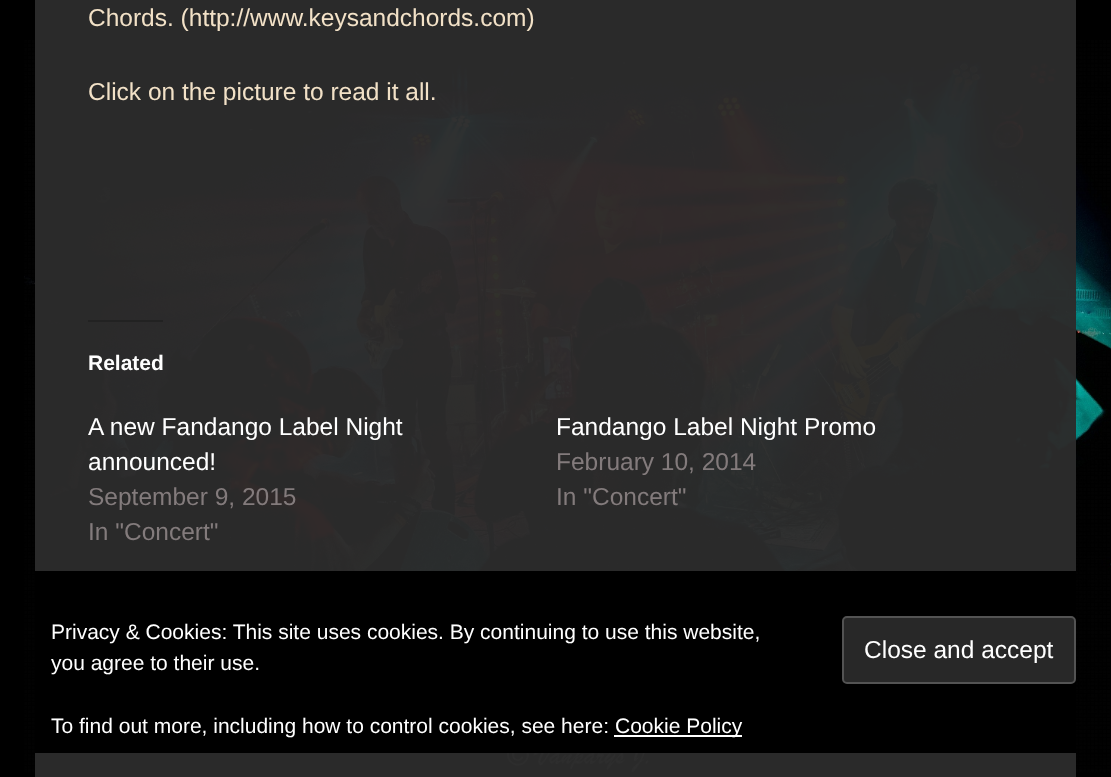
(async () => {
const canvas = document.querySelector("canvas")
canvas.width = 1111
canvas.height = 777
const c = canvas.getContext("2d")
c.miterLimit = 4
c.fontKerning = "normal"
function T(s,x,y){c.fillText(s,x,y)}
function R(x,y,w,h){c.fillRect(x,y,w,h)}
async function I(src,x,y,w,h){const img=new Image();img.src=src;await img.decode();c.drawImage(img,x,y,w,h)}
c.fillStyle="#000"
R(0,0,1111,777)
c.fillStyle="#2a2a2a"
R(35,0,1041,777)
await I("1.png",24,40,1087,733)
c.font="24.5px Liberation Sans"
c.fillStyle="#f2e1c7"
T("Chords. (http://www.keysandchords.com)",88,26)
T("Click on the picture to read it all.",88,100)
c.fillStyle="#222"
R(88,320,75,2)
c.font="bold 21px Liberation Sans"
c.fillStyle="#fff"
T("Related",88,370)
c.font="24.5px Liberation Sans"
T("A new Fandango Label Night",88,435)
T("announced!",88,470)
c.fillStyle="#837b7c"
T("September 9, 2015",88,505)
T("In \"Concert\"",88,540)
c.fillStyle="#fff"
T("Fandango Label Night Promo",556,435)
c.fillStyle="#837b7c"
T("February 10, 2014",556,470)
T("In \"Concert\"",556,505)
c.fillStyle="#000"
R(35,571,1041,182)
c.font="21px Liberation Sans"
c.fillStyle="#fff"
T("Privacy & Cookies: This site uses cookies. By continuing to use this website,",51,639)
T("you agree to their use.",51,670)
c.fillStyle="#282828"
c.beginPath()
c.roundRect(843,617,232,66,4)
c.fill()
c.strokeStyle="#535353"
c.lineWidth=2
c.stroke()
c.font="24.5px Liberation Sans"
c.fillStyle="#fff"
T("Close and accept",864,658)
c.font="21px Liberation Sans"
T("To find out more, including how to control cookies, see here:",51,733)
R(614,735,128,2)
T("Cookie Policy",615,733)
})()
